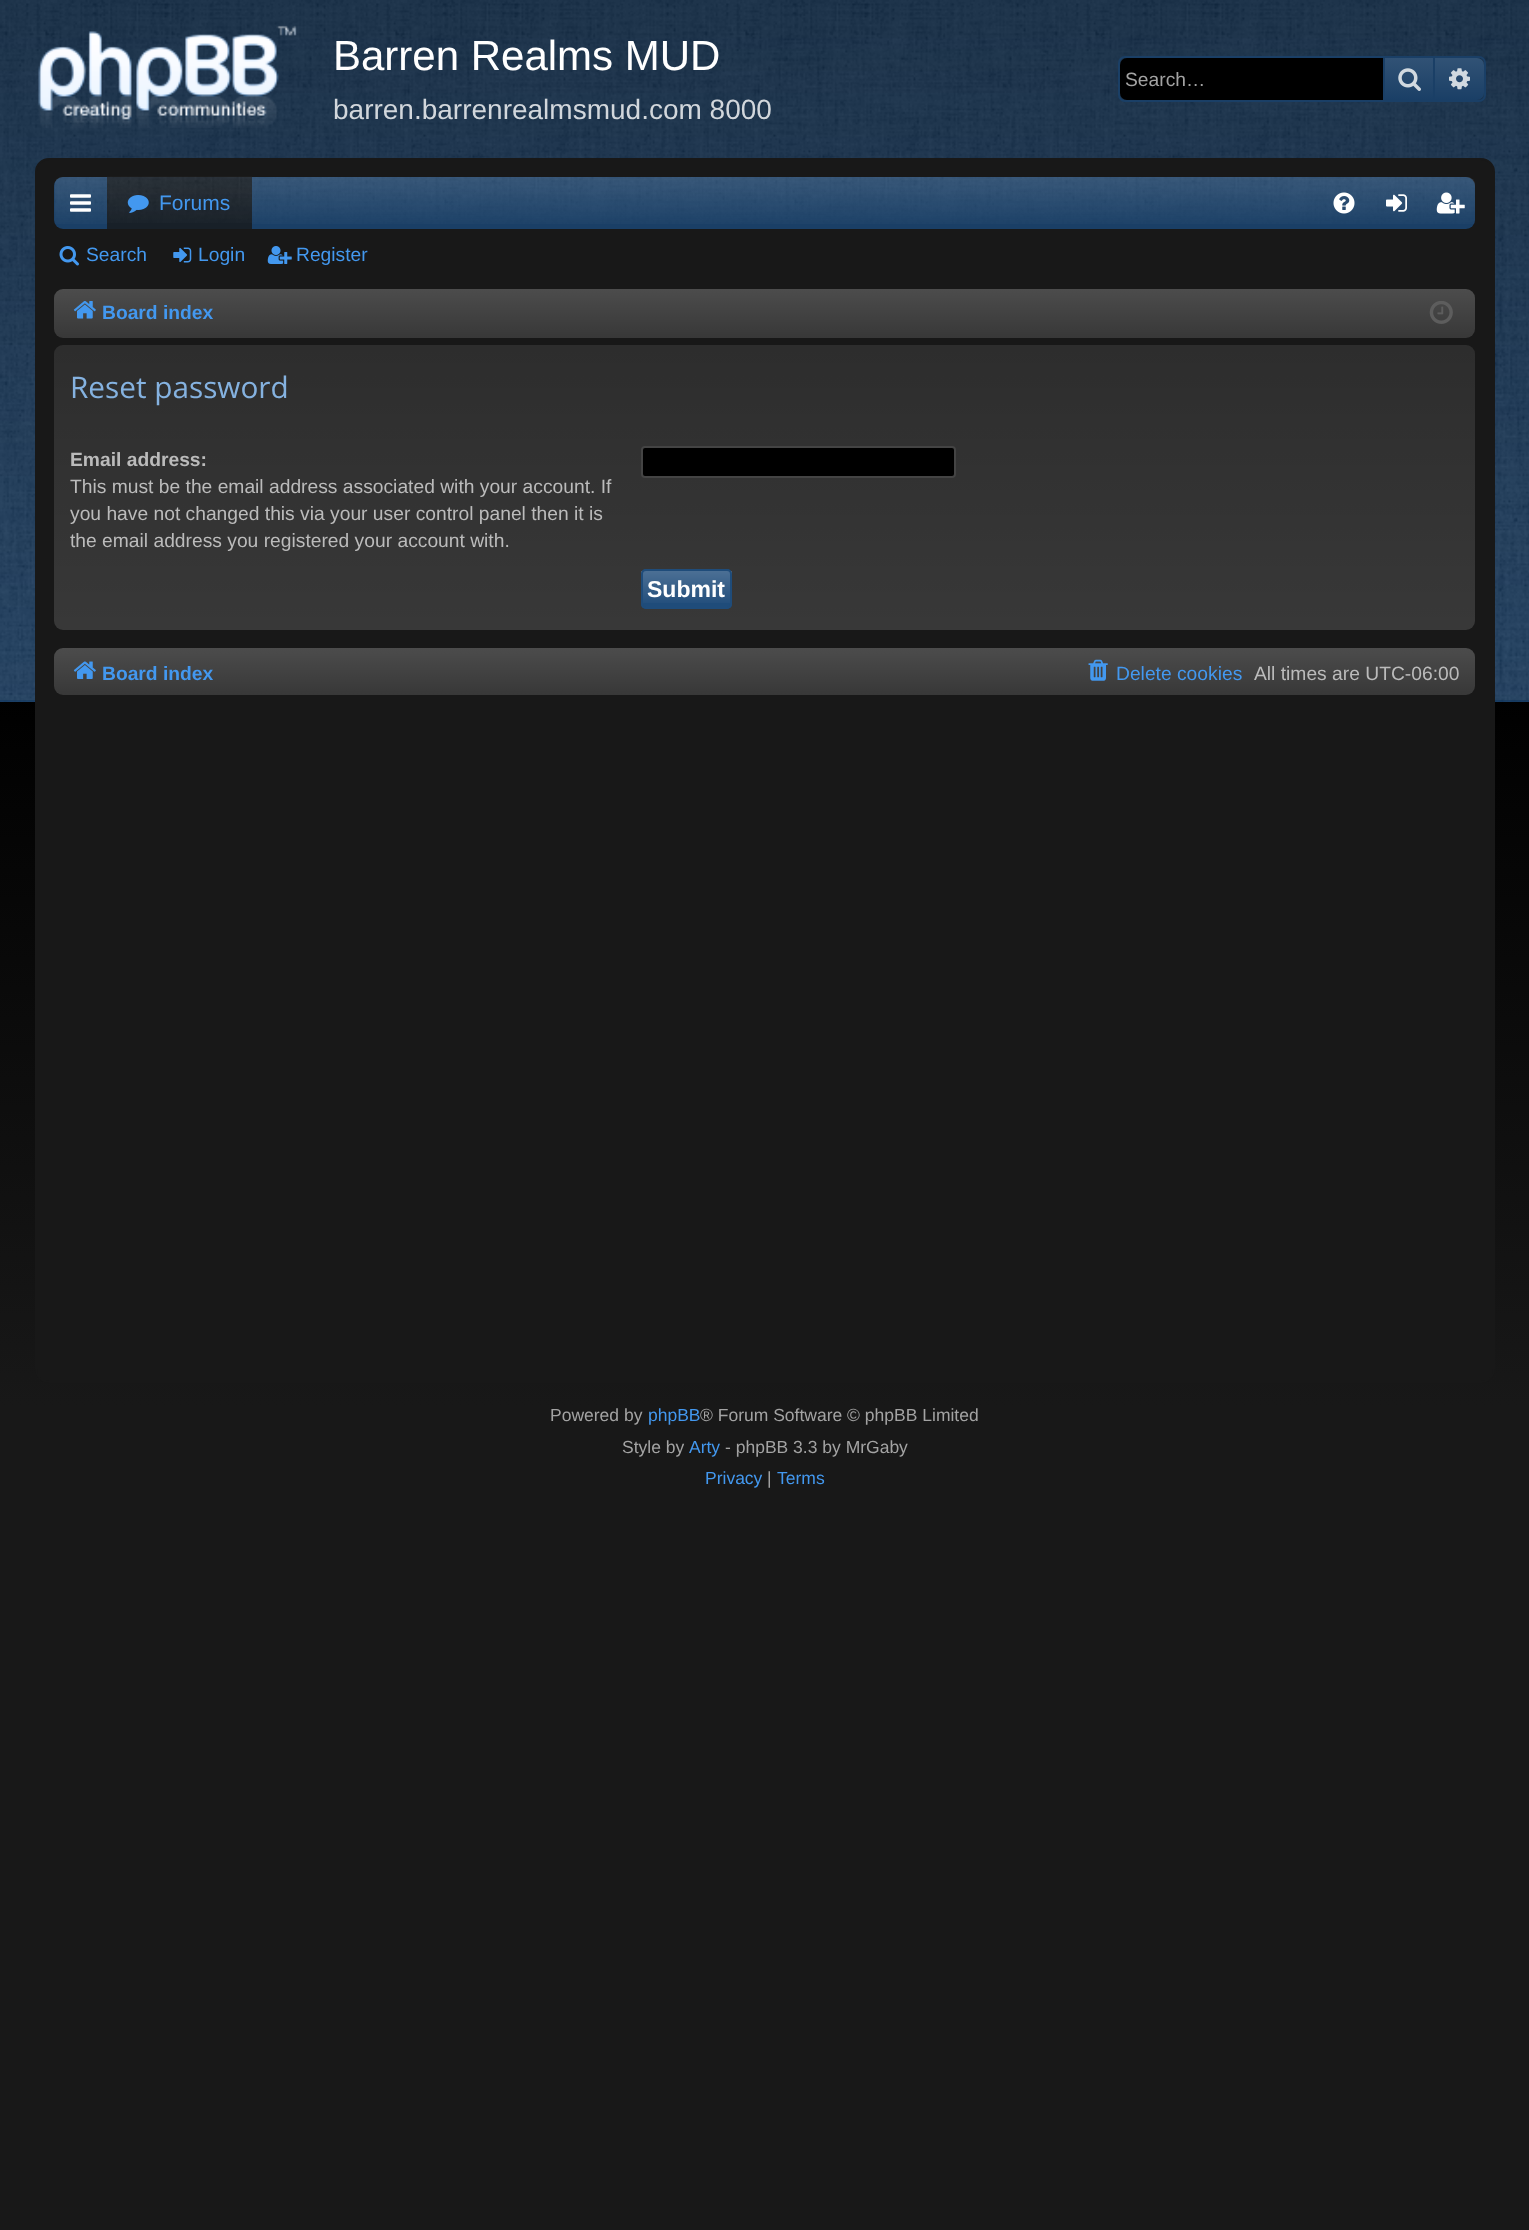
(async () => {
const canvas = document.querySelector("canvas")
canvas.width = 1529
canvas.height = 2230
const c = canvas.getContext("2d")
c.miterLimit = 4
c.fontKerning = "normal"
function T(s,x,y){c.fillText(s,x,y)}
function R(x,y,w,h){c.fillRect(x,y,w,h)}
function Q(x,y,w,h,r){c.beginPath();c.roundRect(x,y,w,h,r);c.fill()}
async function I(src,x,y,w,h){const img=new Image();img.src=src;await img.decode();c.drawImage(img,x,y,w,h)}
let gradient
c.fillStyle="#fff"
R(0,0,1529,2230)
gradient = c.createLinearGradient(765,0,765,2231)
gradient.addColorStop(0,"#000")
gradient.addColorStop(.31,"#000")
gradient.addColorStop(.63,"#181818")
c.fillStyle = gradient
R(0,702,1529,1528)
c.fillStyle="#1a3a5c"
R(0,0,1529,702)
await I("1.png",0,0,1529,702)
c.fillStyle="#1065bc33"
R(0,700,1529,2)
await I("2.png",38,25,259,103)
c.font="42px Liberation Sans"
c.fillStyle="#fff"
T("Barren Realms MUD",333,70)
c.font="28px Liberation Sans"
c.fillStyle="#d2d7dc"
T("barren.barrenrealmsmud.com 8000",333,119)
c.beginPath()
c.roundRect(1119,57,366,44,6)
c.strokeStyle="#1a3f66"
c.lineWidth=2
c.stroke()
c.fillStyle="#000"
c.beginPath()
c.roundRect(1120,58,263,42,[7,0,0,7])
c.fill()
c.font="19.25px Liberation Sans"
c.fillStyle="#a3a3a3"
T("Search…",1125,86)
gradient = c.createLinearGradient(1409,58,1409,100)
gradient.addColorStop(0,"#315275")
gradient.addColorStop(1,"#1a3f66")
c.fillStyle = gradient
R(1385,58,48,42)
c.fillStyle="#1a3f66"
R(1433,58,2,42)
R(1383,58,2,42)
await I("3.png",1398,68,23,23)
c.beginPath()
c.roundRect(1435,58,49,42,[0,7,7,0])
c.fill()
gradient = c.createLinearGradient(1460,58,1460,100)
gradient.addColorStop(0,"#ffffff1a")
gradient.addColorStop(1,"#ffffff00")
c.fillStyle = gradient
c.beginPath()
c.roundRect(1435,58,49,42,[0,7,7,0])
c.fill()
await I("4.png",1449,68,21,22)
c.fillStyle="#181818"
c.beginPath()
c.roundRect(36,159,1458,1223,13)
c.fill()
c.strokeStyle="#181818"
c.stroke()
c.fillStyle="#1a3f66"
Q(54,177,1421,52,9)
await I("5.png",54,177,1421,47)
await I("6.png",70,194,21,18)
c.fillStyle="#182028"
R(107,177,145,52)
await I("7.png",107,176,145,47)
await I("8.png",127,195,22,18)
c.font="21px Liberation Sans"
c.fillStyle="#4398ef"
T("Forums",159,210)
await I("9.png",1333,192,22,22)
await I("10.png",1386,194,21,18)
await I("11.png",1436,192,29,22)
await I("12.png",59,246,20,20)
c.font="19.25px Liberation Sans"
T("Search",86,261)
await I("13.png",173,247,19,16)
T("Login",198,261)
await I("14.png",267,246,25,18)
T("Register",296,261)
c.fillStyle="#383838"
Q(54,289,1421,49,9)
gradient = c.createLinearGradient(765,289,765,338)
gradient.addColorStop(0,"#ffffff1a")
gradient.addColorStop(1,"#ffffff00")
c.fillStyle = gradient
Q(54,289,1421,49,9)
await I("15.png",73,301,23,18)
c.font="bold 19.25px Liberation Sans"
c.fillStyle="#4398ef"
T("Board index",102,319)
await I("16.png",1429,301,24,23)
c.fillStyle="#383838"
Q(54,345,1421,285,9)
gradient = c.createLinearGradient(765,345,765,630)
gradient.addColorStop(0,"#00000033")
gradient.addColorStop(1,"#00000000")
c.fillStyle = gradient
Q(54,345,1421,285,9)
c.font="29.75px Open Sans"
c.fillStyle="#85b2e0"
T("Reset password",70,398)
c.font="bold 19.25px Liberation Sans"
c.fillStyle="#bbb"
T("Email address:",70,466)
c.font="19.25px Liberation Sans"
T("This must be the email address associated with your account. If",70,493)
T("you have not changed this via your user control panel then it is",70,520)
T("the email address you registered your account with.",70,547)
c.fillStyle="#000"
c.beginPath()
c.roundRect(642,447,313,30,3)
c.fill()
c.strokeStyle="#444"
c.stroke()
c.fillStyle="#1f4c7a"
Q(641,569,91,40,5)
gradient = c.createLinearGradient(686,571,686,607)
gradient.addColorStop(0,"#ffffff33")
gradient.addColorStop(1,"#ffffff00")
c.fillStyle = gradient
R(641,571,91,32)
c.beginPath()
c.roundRect(642,570,89,38,4)
c.strokeStyle="#1f4c7a"
c.stroke()
c.font="bold 23px Liberation Sans"
c.fillStyle="#fff"
T("Submit",647,597)
c.fillStyle="#383838"
Q(54,648,1421,47,9)
gradient = c.createLinearGradient(765,647,765,695)
gradient.addColorStop(0,"#ffffff1a")
gradient.addColorStop(1,"#ffffff00")
c.fillStyle = gradient
Q(54,648,1421,47,9)
await I("17.png",73,661,23,18)
c.font="bold 19.25px Liberation Sans"
c.fillStyle="#4398ef"
T("Board index",102,680)
await I("18.png",1088,659,20,22)
c.font="19.25px Liberation Sans"
T("Delete cookies",1116,680)
c.fillStyle="#bbb"
T("All times are UTC-06:00",1254,680)
c.font="17.5px Liberation Sans"
c.fillStyle="#a3a3a3"
T("Powered by",550,1421)
c.fillStyle="#4398ef"
T("phpBB",648,1421)
c.fillStyle="#a3a3a3"
T("® Forum Software © phpBB Limited",700,1421)
T("Style by",622,1453)
c.fillStyle="#4398ef"
T("Arty",689,1453)
c.fillStyle="#a3a3a3"
T("- phpBB 3.3 by MrGaby",725,1453)
c.fillStyle="#4398ef"
T("Privacy",705,1484)
c.fillStyle="#a3a3a3"
T("|",767,1484)
c.fillStyle="#4398ef"
T("Terms",777,1484)
})()
